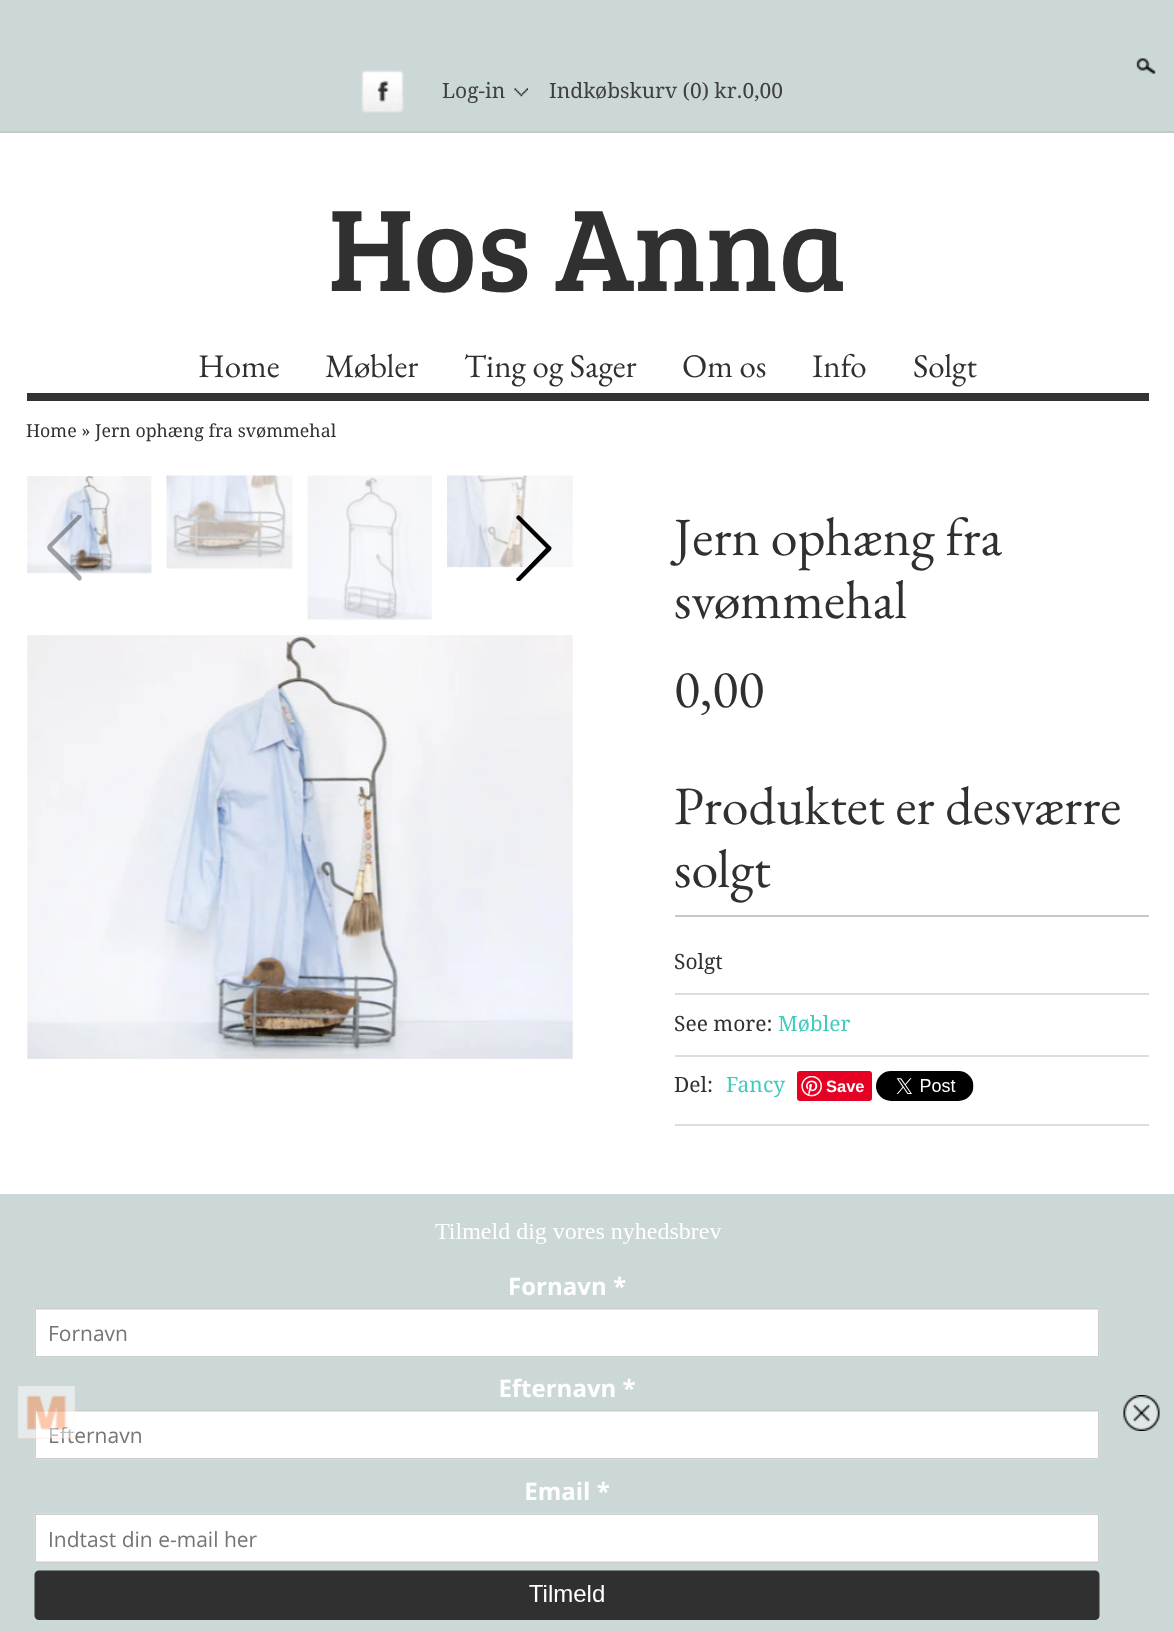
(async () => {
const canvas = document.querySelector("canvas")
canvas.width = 1174
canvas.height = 1631
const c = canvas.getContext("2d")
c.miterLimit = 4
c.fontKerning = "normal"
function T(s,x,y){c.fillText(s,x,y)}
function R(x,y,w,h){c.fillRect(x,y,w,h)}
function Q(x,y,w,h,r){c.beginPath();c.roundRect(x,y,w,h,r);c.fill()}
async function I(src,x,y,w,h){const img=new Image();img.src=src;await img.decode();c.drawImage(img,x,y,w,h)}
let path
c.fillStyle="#ccd7d7"
R(0,0,1174,1631)
await I("1.png",1136,58,20,16)
await I("2.png",361,70,43,43)
await I("3.png",514,88,14,9)
c.font="21px Droid Serif"
c.fillStyle="#404040"
T("Log-in",442,98)
T("Indkøbskurv (0) kr.0,00",549,98)
c.fillStyle="#fff"
R(0,133,1174,1061)
c.fillStyle="#c4c9c5"
R(0,131,1174,2)
c.font="120px Bree Serif"
c.fillStyle="#303030"
T("Hos Anna",328,291)
c.fillStyle="#333"
R(27,393,1122,8)
c.font="33px EB Garamond"
c.fillStyle="#303030"
T("Home",198,377)
T("Møbler",325,377)
T("Ting og Sager",464,377)
T("Om os",682,377)
T("Info",812,377)
T("Solgt",913,377)
c.font="17.8px Droid Serif"
T("Home » Jern ophæng fra svømmehal",26,437)
await I("4.png",27,476,125,98)
await I("5.png",166,475,127,94)
await I("6.png",307,475,125,145)
await I("7.png",447,475,126,93)
c.save()
c.beginPath()
c.rect(33,515,66,66)
c.clip()
c.fillStyle="#00000059"
path = new Path2D("M81 515c1 1 1 2 0 3l-29 29l29 29c1 1 1 3 0 4c-1 1-2 1-3 0l-30-30c-1-2-1-4 0-5l30-30c1-1 2-1 3 0z")
c.fill(path)
c.restore()
c.save()
c.beginPath()
c.rect(501,515,66,66)
c.clip()
c.fillStyle="#000"
path = new Path2D("M517 581c-1-1-1-3 0-3l29-30l-29-29c-1-1-1-2 0-3c1-1 2-1 3 0l30 30c2 1 2 3 0 5l-30 30c-1 1-2 1-3 0z")
c.fill(path)
c.restore()
await I("8.png",27,635,546,424)
c.font="54px EB Garamond"
T("Jern ophæng fra",674,555)
T("svømmehal",674,618)
T("0,00",674,707)
c.fillStyle="#c4c9c5"
R(675,915,474,2)
c.fillStyle="#303030"
T("Produktet er desværre",674,824)
T("solgt",674,887)
c.fillStyle="#ddd"
R(675,993,474,2)
c.font="21px Droid Serif"
c.fillStyle="#303030"
T("Solgt",674,969)
c.fillStyle="#ddd"
R(675,1055,474,2)
c.fillStyle="#303030"
T("See more:",674,1031)
c.fillStyle="#42cabd"
T("Møbler",778,1031)
c.fillStyle="#ddd"
R(675,1124,474,2)
c.fillStyle="#303030"
T("Del:",674,1092)
c.fillStyle="#42cabd"
T("Fancy",726,1092)
c.fillStyle="#e60023"
Q(797,1071,75,30,3)
await I("9.png",801,1076,21,21)
c.font="bold 16.5px Liberation Sans"
c.fillStyle="#fff"
T("Save",826,1092)
await I("10.png",876,1071,98,30)
await I("11.png",0,1194,1174,426)
})()
